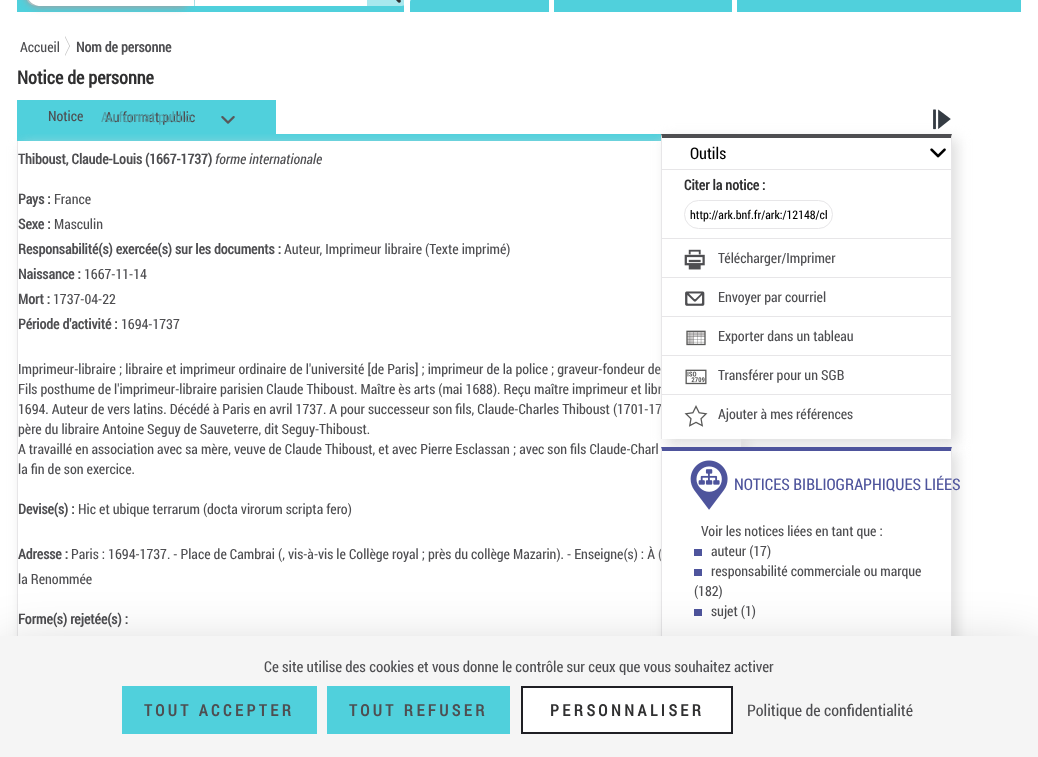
(async () => {
const canvas = document.querySelector("canvas")
canvas.width = 1038
canvas.height = 757
const c = canvas.getContext("2d")
c.miterLimit = 4
c.fontKerning = "normal"
function T(s,x,y){c.fillText(s,x,y)}
function R(x,y,w,h){c.fillRect(x,y,w,h)}
function Q(x,y,w,h,r){c.beginPath();c.roundRect(x,y,w,h,r);c.fill()}
async function I(src,x,y,w,h){const img=new Image();img.src=src;await img.decode();c.drawImage(img,x,y,w,h)}
let path
c.fillStyle="#fff"
R(0,0,1038,757)
c.fillStyle="#50d0dc"
R(17,0,1004,12)
c.fillStyle="#fff"
R(404,0,6,12)
c.fillStyle="#ffffff80"
Q(26,-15,386,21,14.5)
c.fillStyle="#aa9a9a"
c.filter="blur(3.5px)"
c.beginPath()
c.roundRect(25,-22,168,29,14.5)
c.fill()
c.filter="none"
c.fillStyle="#fff"
path = new Path2D("M40.5-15h153.5v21h-153.5c-8 0-14.5-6.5-14.5-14.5v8c0-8 6.5-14.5 14.5-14.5z")
c.fill(path)
R(195,0,18,6)
R(213,0,154,6)
await I("1.png",396,0,5,3)
R(732,0,5,12)
R(549,0,5,12)
await I("2.png",65,36,5,20)
c.font="14px Roboto Condensed"
c.fillStyle="#4e4e51"
T("Accueil",20,52)
c.font="bold 14px Roboto Condensed"
T("Nom de personne",76,52)
c.font="bold 18.25px Roboto Condensed"
c.fillStyle="#303031"
T("Notice de personne",17,84)
c.fillStyle="#50d0dc"
R(17,134,644,7)
c.save()
path = new Path2D("M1 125h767v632h-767zm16 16h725v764h-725z")
c.clip(path,"evenodd")
c.fillStyle="#ddd"
c.filter="blur(6.5px)"
c.beginPath()
c.rect(22,146,725,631)
c.fill()
c.filter="none"
c.restore()
R(17,100,259,34)
c.font="14px Roboto Condensed"
c.fillStyle="#4e4e51"
T("Notice",48,121)
T("Au format public",105,122)
c.fillStyle="#4fa0a8"
T("Au format public",101,122)
await I("3.png",221,116,14,8)
c.fillStyle="#e7e6e8"
R(741,439,1,8)
R(17,141,1,495)
c.font="bold 14px Roboto Condensed"
c.fillStyle="#4e4e51"
T("Thiboust, Claude-Louis (1667-1737)",18,164)
c.font="italic 14px Roboto Condensed"
T("forme internationale",215,164)
c.font="bold 14px Roboto Condensed"
T("Pays :",18,204)
c.font="14px Roboto Condensed"
T("France",54,204)
c.font="bold 14px Roboto Condensed"
T("Sexe :",18,229)
c.font="14px Roboto Condensed"
T("Masculin",54,229)
c.font="bold 14px Roboto Condensed"
T("Responsabilité(s) exercée(s) sur les documents :",18,254)
c.font="14px Roboto Condensed"
T("Auteur, Imprimeur libraire (Texte imprimé)",284,254)
c.font="bold 14px Roboto Condensed"
T("Naissance :",18,279)
c.font="14px Roboto Condensed"
T("1667-11-14",84,279)
c.font="bold 14px Roboto Condensed"
T("Mort :",18,304)
c.font="14px Roboto Condensed"
T("1737-04-22",53,304)
c.font="bold 14px Roboto Condensed"
T("Période d'activité :",18,329)
c.font="14px Roboto Condensed"
T("1694-1737",121,329)
T("Imprimeur-libraire ; libraire et imprimeur ordinaire de l'université [de Paris] ; imprimeur de la police ; graveur-fondeur de",18,374)
T("Fils posthume de l'imprimeur-libraire parisien Claude Thiboust. Maître ès arts (mai 1688). Reçu maître imprimeur et libr",18,394)
T("1694. Auteur de vers latins. Décédé à Paris en avril 1737. A pour successeur son fils, Claude-Charles Thiboust (1701-17",18,414)
T("père du libraire Antoine Seguy de Sauveterre, dit Seguy-Thiboust.",18,434)
T("A travaillé en association avec sa mère, veuve de Claude Thiboust, et avec Pierre Esclassan ; avec son fils Claude-Charl",18,454)
T("la fin de son exercice.",18,474)
c.font="bold 14px Roboto Condensed"
T("Devise(s) :",18,514)
c.font="14px Roboto Condensed"
T("Hic et ubique terrarum (docta virorum scripta fero)",78,514)
c.font="bold 14px Roboto Condensed"
T("Adresse :",18,559)
c.font="14px Roboto Condensed"
T("Paris : 1694-1737. - Place de Cambrai (, vis-à-vis le Collège royal ; près du collège Mazarin). - Enseigne(s) : À (",71,559)
T("la Renommée",18,584)
c.font="bold 14px Roboto Condensed"
T("Forme(s) rejetée(s) :",18,624)
c.fillStyle="#ddd"
c.filter="blur(6.5px)"
c.beginPath()
c.rect(666,139,291,305)
c.fill()
c.filter="none"
await I("4.png",933,109,18,21)
c.fillStyle="#fff"
R(661,134,291,305)
c.fillStyle="#4e4e51"
path = new Path2D("M661 134h291l-1 4h-289z")
c.fill(path)
c.fillStyle="#e7e6e8"
path = new Path2D("M952 134v305h-1v-301z")
c.fill(path)
path = new Path2D("M661 439v-305l1 4v301z")
c.fill(path)
c.font="16.1px Roboto Condensed"
c.fillStyle="#000"
T("Outils",690,159)
await I("5.png",930,148,16,10)
c.fillStyle="#e7e6e8"
R(662,169,289,1)
c.font="bold 14px Roboto Condensed"
c.fillStyle="#303031"
T("Citer la notice :",684,190)
c.beginPath()
c.roundRect(684.5,200.5,148,28,14)
c.strokeStyle="#e7e6e8"
c.stroke()
c.save()
c.beginPath()
c.rect(690,207,137,15)
c.clip()
c.font="11.9px Roboto Condensed"
c.fillStyle="#000"
T("http://ark.bnf.fr/ark:/12148/cb",690,219)
c.restore()
c.fillStyle="#e7e6e8"
R(662,238,289,1)
await I("6.png",684,249,21,21)
c.font="14px Roboto Condensed"
c.fillStyle="#4e4e51"
T("Télécharger/Imprimer",718,263)
c.fillStyle="#e7e6e8"
R(662,277,289,1)
await I("7.png",685,291,20,15)
c.fillStyle="#4e4e51"
T("Envoyer par courriel",718,302)
c.fillStyle="#e7e6e8"
R(662,316,289,1)
await I("8.png",686,330,20,16)
c.fillStyle="#4e4e51"
T("Exporter dans un tableau",718,341)
c.fillStyle="#e7e6e8"
R(662,355,289,1)
await I("9.png",685,369,22,16)
c.fillStyle="#4e4e51"
T("Transférer pour un SGB",718,380)
c.fillStyle="#e7e6e8"
R(662,394,289,1)
await I("10.png",684,405,24,22)
c.fillStyle="#4e4e51"
T("Ajouter à mes références",718,419)
c.fillStyle="#ddd"
c.filter="blur(6.5px)"
c.beginPath()
c.rect(666,452,291,221)
c.fill()
c.filter="none"
c.fillStyle="#fff"
R(661,447,291,189)
c.fillStyle="#4e549c"
path = new Path2D("M661 447h291l-1 4h-289z")
c.fill(path)
c.fillStyle="#e7e6e8"
path = new Path2D("M952 447v221h-1v-217z")
c.fill(path)
path = new Path2D("M661 668v-221l1 4v217z")
c.fill(path)
await I("11.png",690,460,38,50)
c.font="16.1px Roboto Condensed"
c.fillStyle="#4e549c"
T("NOTICES BIBLIOGRAPHIQUES LIÉES",734,490)
c.font="14px Roboto Condensed"
c.fillStyle="#4e4e51"
T("Voir les notices liées en tant que :",701,536)
c.fillStyle="#4e549c"
R(694,549,8,7)
c.fillStyle="#4e4e51"
T("auteur (17)",711,556)
c.fillStyle="#4e549c"
R(694,569,8,7)
c.fillStyle="#4e4e51"
T("responsabilité commerciale ou marque",711,576)
T("(182)",694,596)
c.fillStyle="#4e549c"
R(694,609,8,7)
c.fillStyle="#4e4e51"
T("sujet (1)",711,616)
c.fillStyle="#00000040"
c.filter="blur(30px)"
c.beginPath()
c.rect(0,656,1038,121)
c.fill()
c.filter="none"
c.fillStyle="#f5f5f5"
R(0,636,1038,121)
c.font="15px Roboto Condensed"
c.fillStyle="#4e4e51"
T("Ce site utilise des cookies et vous donne le contrôle sur ceux que vous souhaitez activer",264,672)
c.fillStyle="#50d0dc"
R(122,686,195,48)
c.letterSpacing="3.5px"
c.font="bold 16px Roboto Condensed"
c.fillStyle="#4e4e51"
T("TOUT ACCEPTER",144,716)
c.fillStyle="#50d0dc"
R(327,686,183,48)
c.fillStyle="#4e4e51"
T("TOUT REFUSER",349,716)
c.fillStyle="#fff"
c.beginPath()
c.rect(522,687,210,46)
c.fill()
c.strokeStyle="#1f1f24"
c.lineWidth=2
c.stroke()
c.fillStyle="#303031"
T("PERSONNALISER",550,716)
c.letterSpacing="0px"
c.font="16px Roboto Condensed"
c.fillStyle="#4e4e51"
T("Politique de confidentialité",747,716)
})()
